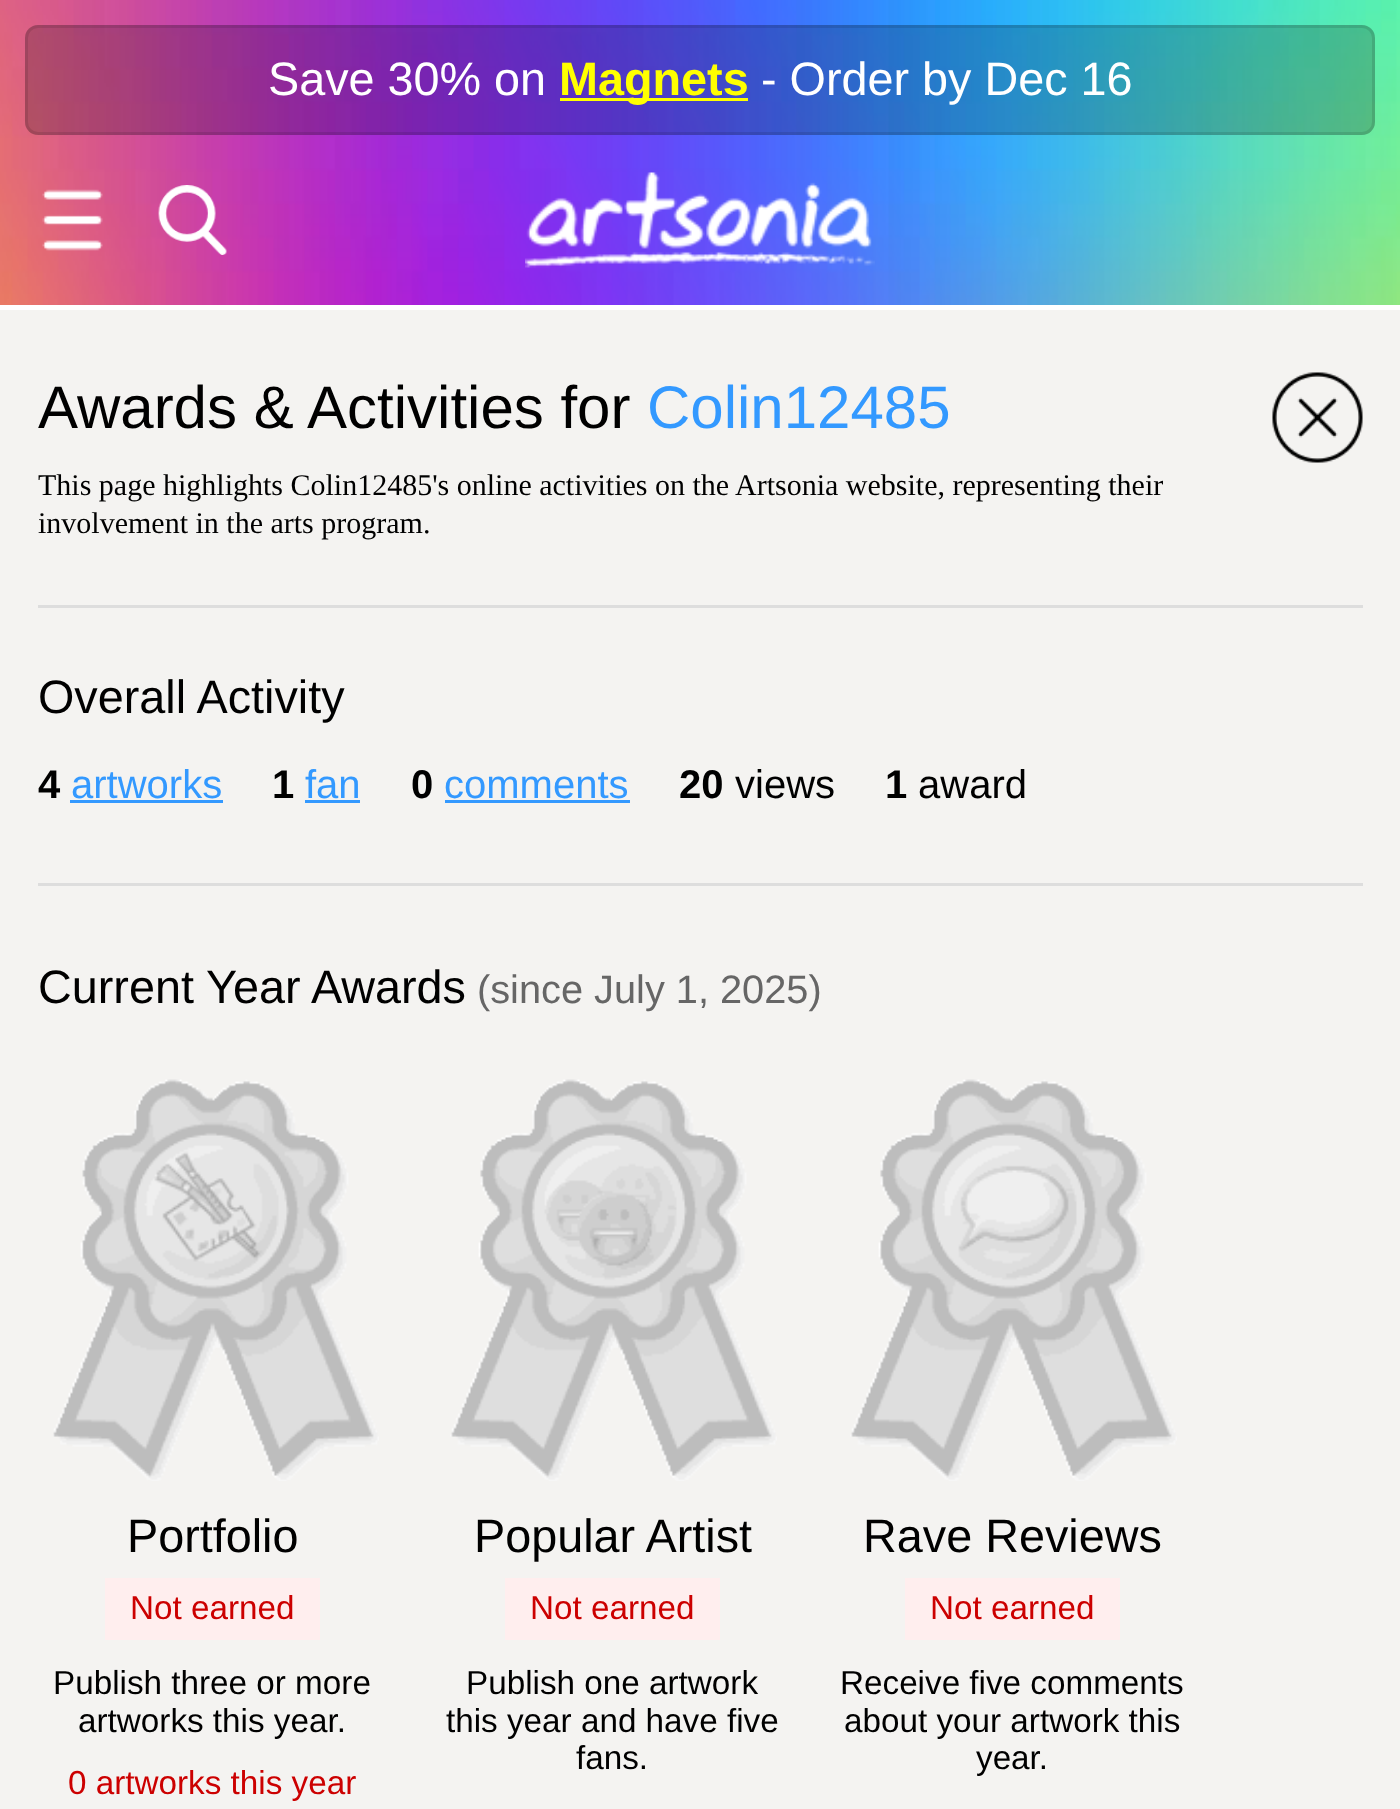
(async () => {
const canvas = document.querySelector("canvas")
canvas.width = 1400
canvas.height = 1809
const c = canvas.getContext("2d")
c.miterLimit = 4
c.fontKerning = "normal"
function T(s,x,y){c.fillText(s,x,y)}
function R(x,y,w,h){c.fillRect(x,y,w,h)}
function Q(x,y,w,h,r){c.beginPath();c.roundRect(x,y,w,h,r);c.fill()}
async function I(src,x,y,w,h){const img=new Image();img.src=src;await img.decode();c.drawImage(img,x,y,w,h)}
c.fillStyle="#f4f3f1"
R(0,0,1400,1809)
await I("1.png",0,0,1400,305)
c.fillStyle="#00000033"
Q(25,25,1350,110,13)
c.beginPath()
c.roundRect(26.5,26.5,1347,107,11.5)
c.strokeStyle="#0000001a"
c.lineWidth=3
c.stroke()
c.font="46.75px Liberation Sans"
c.fillStyle="#fff"
T("Save 30% on",268,95)
c.fillStyle="#ff0"
R(560,98,188,3)
c.font="bold 46.75px Liberation Sans"
T("Magnets",559,95)
c.font="46.75px Liberation Sans"
c.fillStyle="#fff"
T("- Order by Dec 16",761,95)
await I("2.png",42,189,61,62)
await I("3.png",158,185,69,70)
await I("4.png",525,172,350,96)
R(0,305,1400,5)
c.font="60px Liberation Sans"
c.fillStyle="#000"
T("Awards & Activities for",38,428)
c.fillStyle="#39f"
T("Colin12485",647,428)
c.font="30px Liberation Serif"
c.fillStyle="#000"
T("This page highlights Colin12485's online activities on the Artsonia website, representing their",38,495)
T("involvement in the arts program.",38,533)
await I("5.png",1272,372,91,91)
c.fillStyle="#ddd"
R(38,605,1325,3)
c.font="46.75px Liberation Sans"
c.fillStyle="#000"
T("Overall Activity",38,713)
c.font="bold 40px Liberation Sans"
T("4",38,798)
c.font="40px Liberation Sans"
c.fillStyle="#39f"
T("artworks",71,798)
R(70,800,153,3)
c.font="bold 40px Liberation Sans"
c.fillStyle="#000"
T("1",272,798)
c.font="40px Liberation Sans"
c.fillStyle="#39f"
T("fan",305,798)
R(305,800,55,3)
c.font="bold 40px Liberation Sans"
c.fillStyle="#000"
T("0",411,798)
c.font="40px Liberation Sans"
c.fillStyle="#39f"
T("comments",444,798)
R(445,800,185,3)
c.font="bold 40px Liberation Sans"
c.fillStyle="#000"
T("20",679,798)
c.font="40px Liberation Sans"
T("views",735,798)
c.font="bold 40px Liberation Sans"
T("1",885,798)
c.font="40px Liberation Sans"
T("award",918,798)
c.fillStyle="#ddd"
R(38,883,1325,3)
c.font="46.75px Liberation Sans"
c.fillStyle="#000"
T("Current Year Awards",38,1003)
c.font="39.75px Liberation Sans"
c.fillStyle="#666"
T("(since July 1, 2025)",477,1003)
await I("6.png",53,1079,326,402)
c.font="46.75px Liberation Sans"
c.fillStyle="#000"
T("Portfolio",127,1552)
c.fillStyle="#fee"
R(105,1578,215,62)
c.font="33.25px Liberation Sans"
c.fillStyle="#c00"
T("Not earned",130,1619)
c.fillStyle="#000"
T("Publish three or more",53,1694)
T("artworks this year.",78,1732)
c.fillStyle="#c00"
T("0 artworks this year",68,1794)
await I("7.png",450,1079,327,402)
c.font="46.75px Liberation Sans"
c.fillStyle="#000"
T("Popular Artist",474,1552)
c.fillStyle="#fee"
R(505,1578,215,62)
c.font="33.25px Liberation Sans"
c.fillStyle="#c00"
T("Not earned",530,1619)
c.fillStyle="#000"
T("Publish one artwork",466,1694)
T("this year and have five",446,1732)
T("fans.",576,1769)
await I("8.png",850,1079,327,402)
c.font="46.75px Liberation Sans"
T("Rave Reviews",863,1552)
c.fillStyle="#fee"
R(905,1578,215,62)
c.font="33.25px Liberation Sans"
c.fillStyle="#c00"
T("Not earned",930,1619)
c.fillStyle="#000"
T("Receive five comments",840,1694)
T("about your artwork this",844,1732)
T("year.",976,1769)
})()
